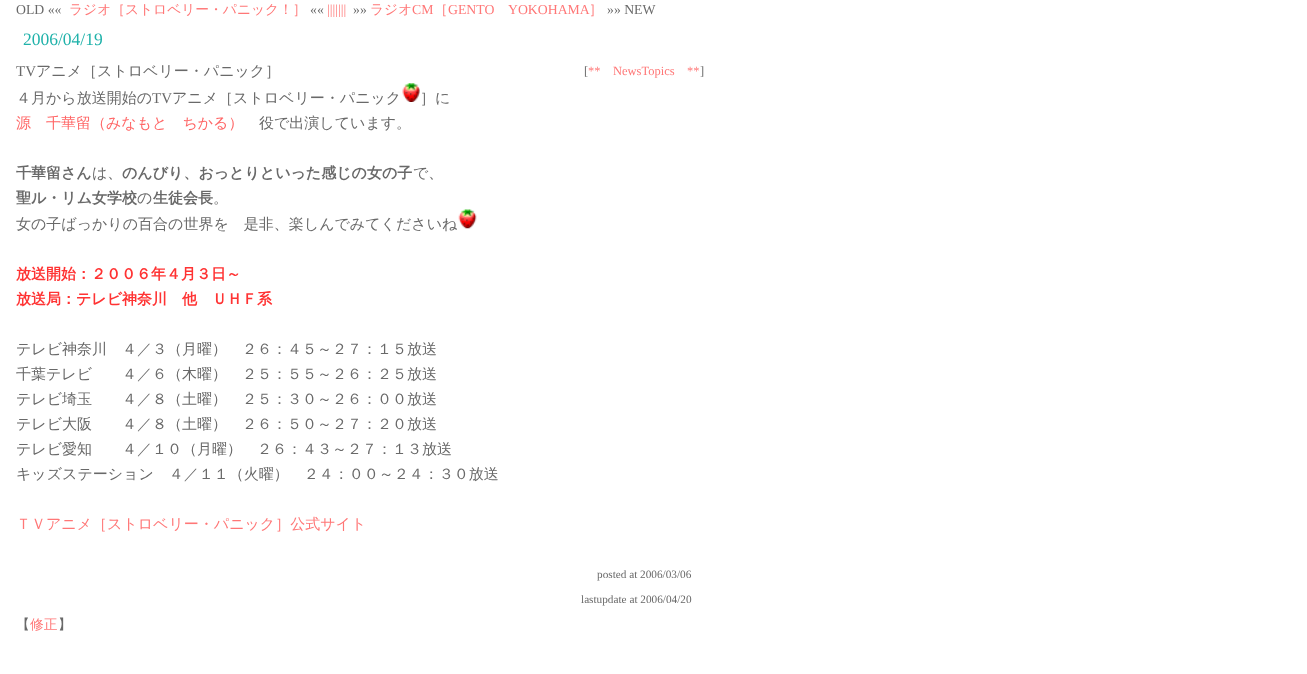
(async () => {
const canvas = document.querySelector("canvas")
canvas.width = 1307
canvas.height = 674
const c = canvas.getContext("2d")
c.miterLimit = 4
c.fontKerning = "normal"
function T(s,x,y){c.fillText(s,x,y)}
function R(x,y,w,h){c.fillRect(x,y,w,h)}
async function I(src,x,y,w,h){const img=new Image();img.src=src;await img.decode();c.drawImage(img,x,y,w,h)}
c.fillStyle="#fff"
R(0,0,1307,674)
c.font="13.75px Liberation Serif"
c.fillStyle="#696969"
T("OLD ««",16,14)
c.font="500 13.75px WenQuanYi Zen Hei"
c.fillStyle="#f77"
T("ラジオ［ストロベリー・パニック！］",69,14)
c.font="13.75px Liberation Serif"
c.fillStyle="#696969"
T("««",310,14)
c.fillStyle="#f77"
T("|||||||",327,14)
c.fillStyle="#696969"
T("»»",353,14)
c.font="500 13.75px WenQuanYi Zen Hei"
c.fillStyle="#f77"
T("ラジオ",370,14)
c.font="13.75px Liberation Serif"
T("CM",412,14)
c.font="500 13.75px WenQuanYi Zen Hei"
T("［",434,14)
c.font="13.75px Liberation Serif"
T("GENTO",448,14)
T("YOKOHAMA",508,14)
c.font="500 13.75px WenQuanYi Zen Hei"
T("］",589,14)
c.font="13.75px Liberation Serif"
c.fillStyle="#696969"
T("»» NEW",607,14)
c.font="17.5px Liberation Serif"
c.fillStyle="#20b2aa"
T("2006/04/19",23,45)
c.font="15px Liberation Serif"
c.fillStyle="#696969"
T("TV",16,76)
c.font="500 15px WenQuanYi Zen Hei"
T("アニメ［ストロベリー・パニック］",36,76)
c.font="12.5px Liberation Serif"
T("[",584,75)
c.fillStyle="#f77"
T("**",588,75)
T("NewsTopics",613,75)
T("**",687,75)
c.fillStyle="#696969"
T("]",700,75)
c.font="500 15px WenQuanYi Zen Hei"
T("４月から放送開始の",16,103)
c.font="15px Liberation Serif"
T("TV",152,103)
c.font="500 15px WenQuanYi Zen Hei"
T("アニメ［ストロベリー・パニック",172,103)
await I("1.png",402,83,18,19)
T("］に",420,103)
c.fillStyle="#f66"
T("源　千華留（みなもと　ちかる）",16,128)
c.fillStyle="#696969"
T("役で出演しています。",259,128)
c.font="bold 15px WenQuanYi Zen Hei"
T("千華留さん",16,178)
c.font="500 15px WenQuanYi Zen Hei"
T("は、",92,178)
c.font="bold 15px WenQuanYi Zen Hei"
T("のんびり、おっとりといった感じの女の子",122,178)
c.font="500 15px WenQuanYi Zen Hei"
T("で、",413,178)
c.font="bold 15px WenQuanYi Zen Hei"
T("聖ル・リム女学校",16,203)
c.font="500 15px WenQuanYi Zen Hei"
T("の",137,203)
c.font="bold 15px WenQuanYi Zen Hei"
T("生徒会長",153,203)
c.font="500 15px WenQuanYi Zen Hei"
T("。",213,203)
T("女の子ばっかりの百合の世界を　是非、楽しんでみてくださいね",16,229)
await I("2.png",458,209,19,20)
c.font="bold 15px WenQuanYi Zen Hei"
c.fillStyle="#f33"
T("放送開始：２００６年４月３日～",16,279)
T("放送局：テレビ神奈川　他　ＵＨＦ系",16,304)
c.font="500 15px WenQuanYi Zen Hei"
c.fillStyle="#696969"
T("テレビ神奈川　４／３（月曜）　２６：４５～２７：１５放送",16,354)
T("千葉テレビ　　４／６（木曜）　２５：５５～２６：２５放送",16,379)
T("テレビ埼玉　　４／８（土曜）　２５：３０～２６：００放送",16,404)
T("テレビ大阪　　４／８（土曜）　２６：５０～２７：２０放送",16,429)
T("テレビ愛知　　４／１０（月曜）　２６：４３～２７：１３放送",16,454)
T("キッズステーション　４／１１（火曜）　２４：００～２４：３０放送",16,479)
c.fillStyle="#f77"
T("ＴＶアニメ［ストロベリー・パニック］公式サイト",16,529)
c.font="11.25px Liberation Serif"
c.fillStyle="#696969"
T("posted at 2006/03/06",597,578)
T("lastupdate at 2006/04/20",581,603)
c.font="500 13.75px WenQuanYi Zen Hei"
T("【",16,629)
c.fillStyle="#f77"
T("修正",30,629)
c.fillStyle="#696969"
T("】",58,629)
})()
